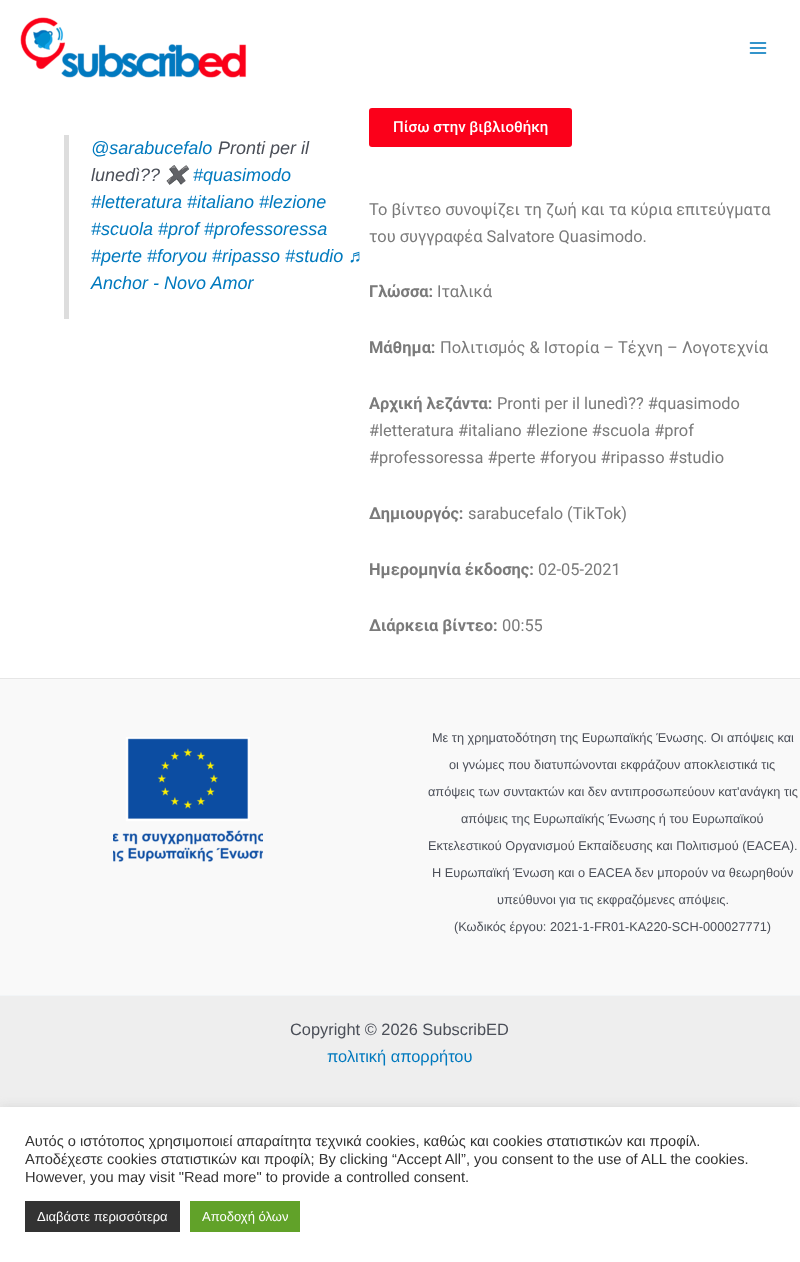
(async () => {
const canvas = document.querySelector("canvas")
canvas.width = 800
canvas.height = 1262
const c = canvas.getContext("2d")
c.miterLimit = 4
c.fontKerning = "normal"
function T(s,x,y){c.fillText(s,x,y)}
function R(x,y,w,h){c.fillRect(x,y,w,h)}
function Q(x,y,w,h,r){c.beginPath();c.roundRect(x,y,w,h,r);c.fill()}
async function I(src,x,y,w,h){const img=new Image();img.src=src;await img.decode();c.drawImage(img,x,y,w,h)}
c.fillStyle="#fff"
R(0,0,800,1262)
await I("1.png",20,17,227,61)
await I("2.png",749,42,18,12)
c.fillStyle="#ddd"
R(64,135,5,184)
c.font="italic 18px Liberation Sans"
c.fillStyle="#0079be"
T("@sarabucefalo",91,154)
c.fillStyle="#4b4f58"
T("Pronti per il",218,154)
T("lunedì??",91,181)
c.font="italic 18px Noto Color Emoji"
T("✖️",165,181)
c.font="italic 18px Liberation Sans"
c.fillStyle="#0079be"
T("#quasimodo",193,181)
T("#letteratura #italiano #lezione",91,208)
T("#scuola #prof #professoressa",91,235)
T("#perte #foryou #ripasso #studio ♬",91,262)
T("Anchor - Novo Amor",91,289)
c.fillStyle="#fb001a"
Q(369,108,203,39,3)
c.font="500 15px Roboto"
c.fillStyle="#fff"
T("Πίσω στην βιβλιοθήκη",393,132)
c.font="16.4px Roboto"
c.fillStyle="#7a7a7a"
T("Το βίντεο συνοψίζει τη ζωή και τα κύρια επιτεύγματα",369,215)
T("του συγγραφέα Salvatore Quasimodo.",369,242)
c.font="bold 16.4px Roboto"
T("Γλώσσα:",369,297)
c.font="16.4px Roboto"
T("Ιταλικά",437,297)
c.font="bold 16.4px Roboto"
T("Μάθημα:",369,353)
c.font="16.4px Roboto"
T("Πολιτισμός & Ιστορία – Τέχνη – Λογοτεχνία",440,353)
c.font="bold 16.4px Roboto"
T("Αρχική λεζάντα:",369,409)
c.font="16.4px Roboto"
T("Pronti per il lunedì?? #quasimodo",497,409)
T("#letteratura #italiano #lezione #scuola #prof",369,436)
T("#professoressa #perte #foryou #ripasso #studio",369,463)
c.font="bold 16.4px Roboto"
T("Δημιουργός:",369,519)
c.font="16.4px Roboto"
T("sarabucefalo (TikTok)",468,519)
c.font="bold 16.4px Roboto"
T("Ημερομηνία έκδοσης:",369,575)
c.font="16.4px Roboto"
T("02-05-2021",538,575)
c.font="bold 16.4px Roboto"
T("Διάρκεια βίντεο:",369,631)
c.font="16.4px Roboto"
T("00:55",502,631)
c.fillStyle="#f9f9f9"
R(0,679,800,316)
c.fillStyle="#e6e6e6"
R(0,678,800,1)
await I("3.png",113,737,150,125)
c.font="12.75px Liberation Sans"
c.fillStyle="#4b4f58"
T("Με τη χρηματοδότηση της Ευρωπαϊκής Ένωσης. Οι απόψεις και",432,742)
T("οι γνώμες που διατυπώνονται εκφράζουν αποκλειστικά τις",449,769)
T("απόψεις των συντακτών και δεν αντιπροσωπεύουν κατ'ανάγκη τις",428,796)
T("απόψεις της Ευρωπαϊκής Ένωσης ή του Ευρωπαϊκού",461,823)
T("Εκτελεστικού Οργανισμού Εκπαίδευσης και Πολιτισμού (EACEA).",428,850)
T("Η Ευρωπαϊκή Ένωση και ο EACEA δεν μπορούν να θεωρηθούν",432,877)
T("υπεύθυνοι για τις εκφραζόμενες απόψεις.",497,904)
T("(Κωδικός έργου: 2021-1-FR01-KA220-SCH-000027771)",454,931)
c.fillStyle="#eee"
R(0,996,800,111)
c.fillStyle="#f2f5f7"
R(0,995,800,1)
c.font="16.4px Liberation Sans"
c.fillStyle="#4b4f58"
T("Copyright © 2026 SubscribED",290,1035)
c.fillStyle="#0079be"
T("πολιτική απορρήτου",327,1062)
c.fillStyle="#acabab4d"
c.filter="blur(5px)"
c.beginPath()
c.rect(0,1106,800,155)
c.fill()
c.filter="none"
c.fillStyle="#fff"
R(0,1107,800,155)
c.font="14.65px Liberation Sans"
c.fillStyle="#333"
T("Αυτός ο ιστότοπος χρησιμοποιεί απαραίτητα τεχνικά cookies, καθώς και cookies στατιστικών και προφίλ.",25,1146)
T("Αποδέχεστε cookies στατιστικών και προφίλ; By clicking “Accept All”, you consent to the use of ALL the cookies.",25,1164)
T("However, you may visit \"Read more\" to provide a controlled consent.",25,1182)
R(25,1201,155,31)
c.font="13px Liberation Sans"
c.fillStyle="#fff"
T("Διαβάστε περισσότερα",37,1221)
c.fillStyle="#61a229"
R(190,1201,110,31)
c.fillStyle="#fff"
T("Αποδοχή όλων",202,1221)
})()
